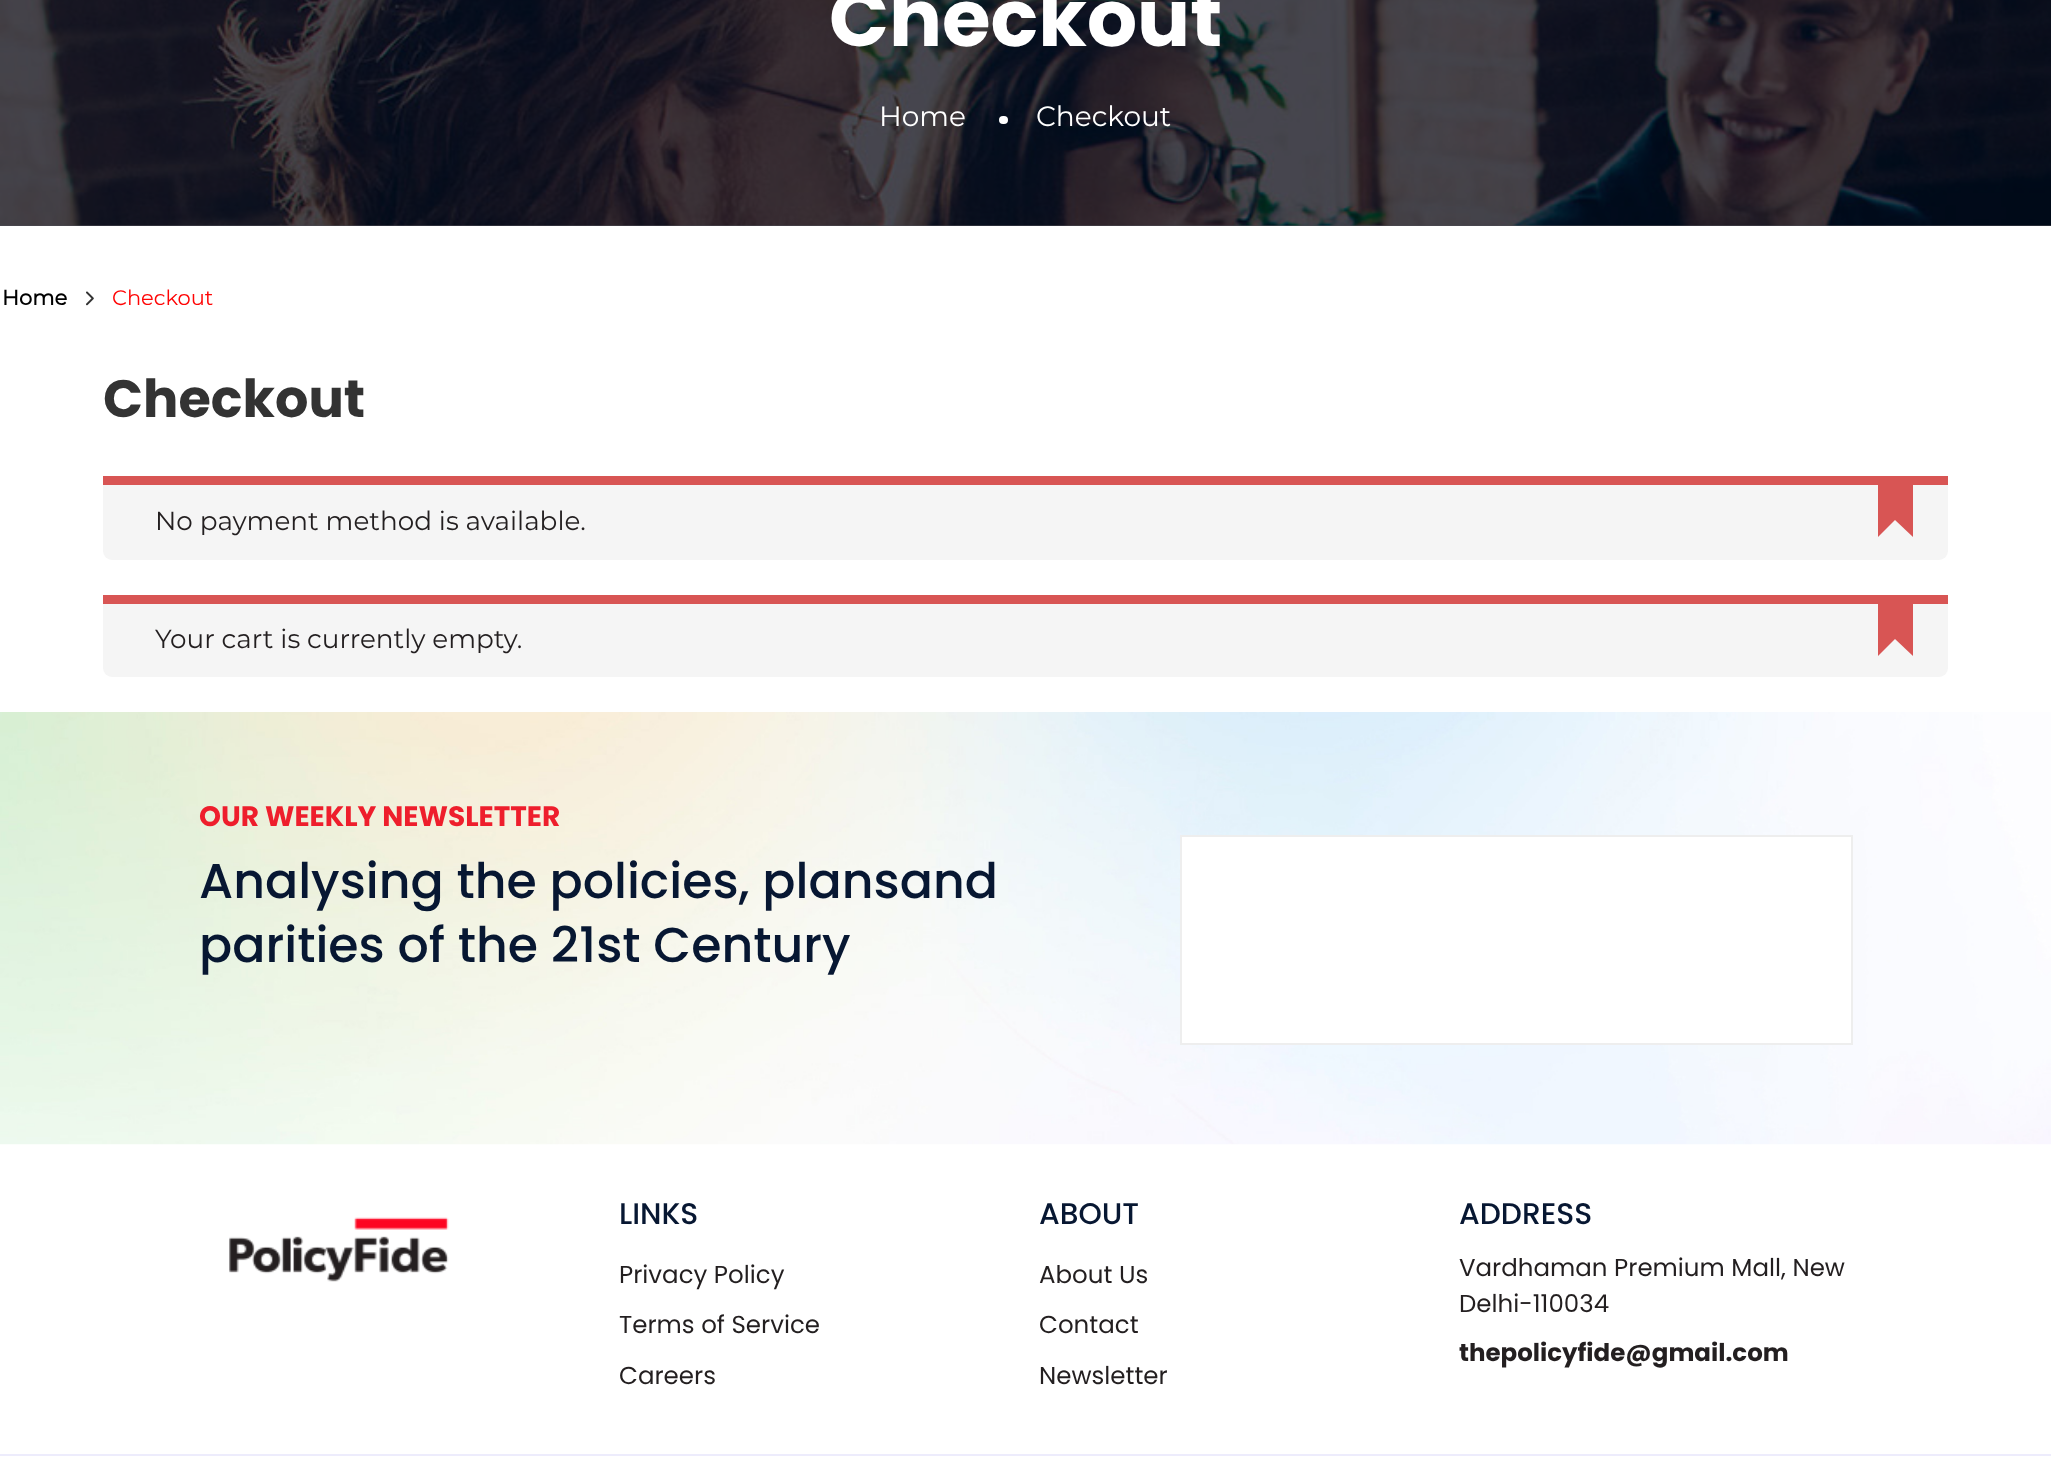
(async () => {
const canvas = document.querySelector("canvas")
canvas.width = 2051
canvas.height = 1468
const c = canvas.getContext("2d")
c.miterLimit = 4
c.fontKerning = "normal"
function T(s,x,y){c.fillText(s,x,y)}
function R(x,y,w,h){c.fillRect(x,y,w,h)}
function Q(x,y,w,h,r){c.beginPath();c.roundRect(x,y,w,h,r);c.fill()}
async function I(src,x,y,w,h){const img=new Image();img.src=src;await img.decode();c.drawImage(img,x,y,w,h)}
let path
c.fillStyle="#fff"
R(0,0,2051,1468)
c.fillStyle="#4d4d55"
R(0,225,2051,1)
await I("1.png",0,0,2051,226)
c.font="bold 78.75px Poppins"
c.fillStyle="#fff"
T("Checkout",829,46)
c.font="28px Montserrat"
T("Home",879,126)
Q(999,116,9,8,4)
T("Checkout",1036,126)
c.font="bold 21px Montserrat"
c.fillStyle="#000"
T("Home",2,305)
await I("2.png",86,291,8,15)
c.font="21px Montserrat"
c.fillStyle="#ff0505"
T("Checkout",112,305)
c.font="bold 52.5px Poppins"
c.fillStyle="#333"
T("Checkout",103,417)
c.fillStyle="#f5f5f5"
c.beginPath()
c.roundRect(103,476,1845,84,[0,0,9,9])
c.fill()
c.fillStyle="#d85554"
R(103,476,1845,9)
c.font="26.25px Montserrat"
c.fillStyle="#231f20"
T("No payment method is available.",155,530)
c.fillStyle="#d85554"
R(1878,485,35,52)
c.fillStyle="#f5f5f5"
path = new Path2D("M1913 537h-35l17-17z")
c.fill(path)
c.beginPath()
c.roundRect(103,595,1845,82,[0,0,9,9])
c.fill()
c.fillStyle="#d85554"
R(103,595,1845,9)
c.fillStyle="#231f20"
T("Your cart is currently empty.",155,648)
c.fillStyle="#d85554"
R(1878,604,35,52)
c.fillStyle="#f5f5f5"
path = new Path2D("M1913 656h-35l17-17z")
c.fill(path)
await I("3.png",0,712,2051,433)
c.font="bold 28px Poppins"
c.fillStyle="#ee1e2c"
T("OUR WEEKLY NEWSLETTER",199,826)
c.font="500 49px Poppins"
c.fillStyle="#071732"
T("Analysing the policies, plansand",199,898)
T("parities of the 21st Century",199,962)
c.fillStyle="#fff"
c.beginPath()
c.rect(1181,836,671,208)
c.fill()
c.strokeStyle="#eee"
c.lineWidth=2
c.stroke()
await I("4.png",229,1217,220,65)
c.font="500 29.75px Poppins"
c.fillStyle="#071732"
T("LINKS",619,1224)
c.font="24.5px Poppins"
c.fillStyle="#231f20"
T("Privacy Policy",619,1283)
T("Terms of Service",619,1333)
T("Careers",619,1384)
c.font="500 29.75px Poppins"
c.fillStyle="#071732"
T("ABOUT",1039,1224)
c.font="24.5px Poppins"
c.fillStyle="#231f20"
T("About Us",1039,1283)
T("Contact",1039,1333)
T("Newsletter",1039,1384)
c.font="500 29.75px Poppins"
c.fillStyle="#071732"
T("ADDRESS",1459,1224)
c.font="24.5px Poppins"
c.fillStyle="#231f20"
T("Vardhaman Premium Mall, New",1459,1276)
T("Delhi-110034",1459,1312)
c.font="bold 24.5px Poppins"
T("thepolicyfide@gmail.com",1459,1361)
c.fillStyle="#edecfc"
R(0,1454,2051,2)
})()
